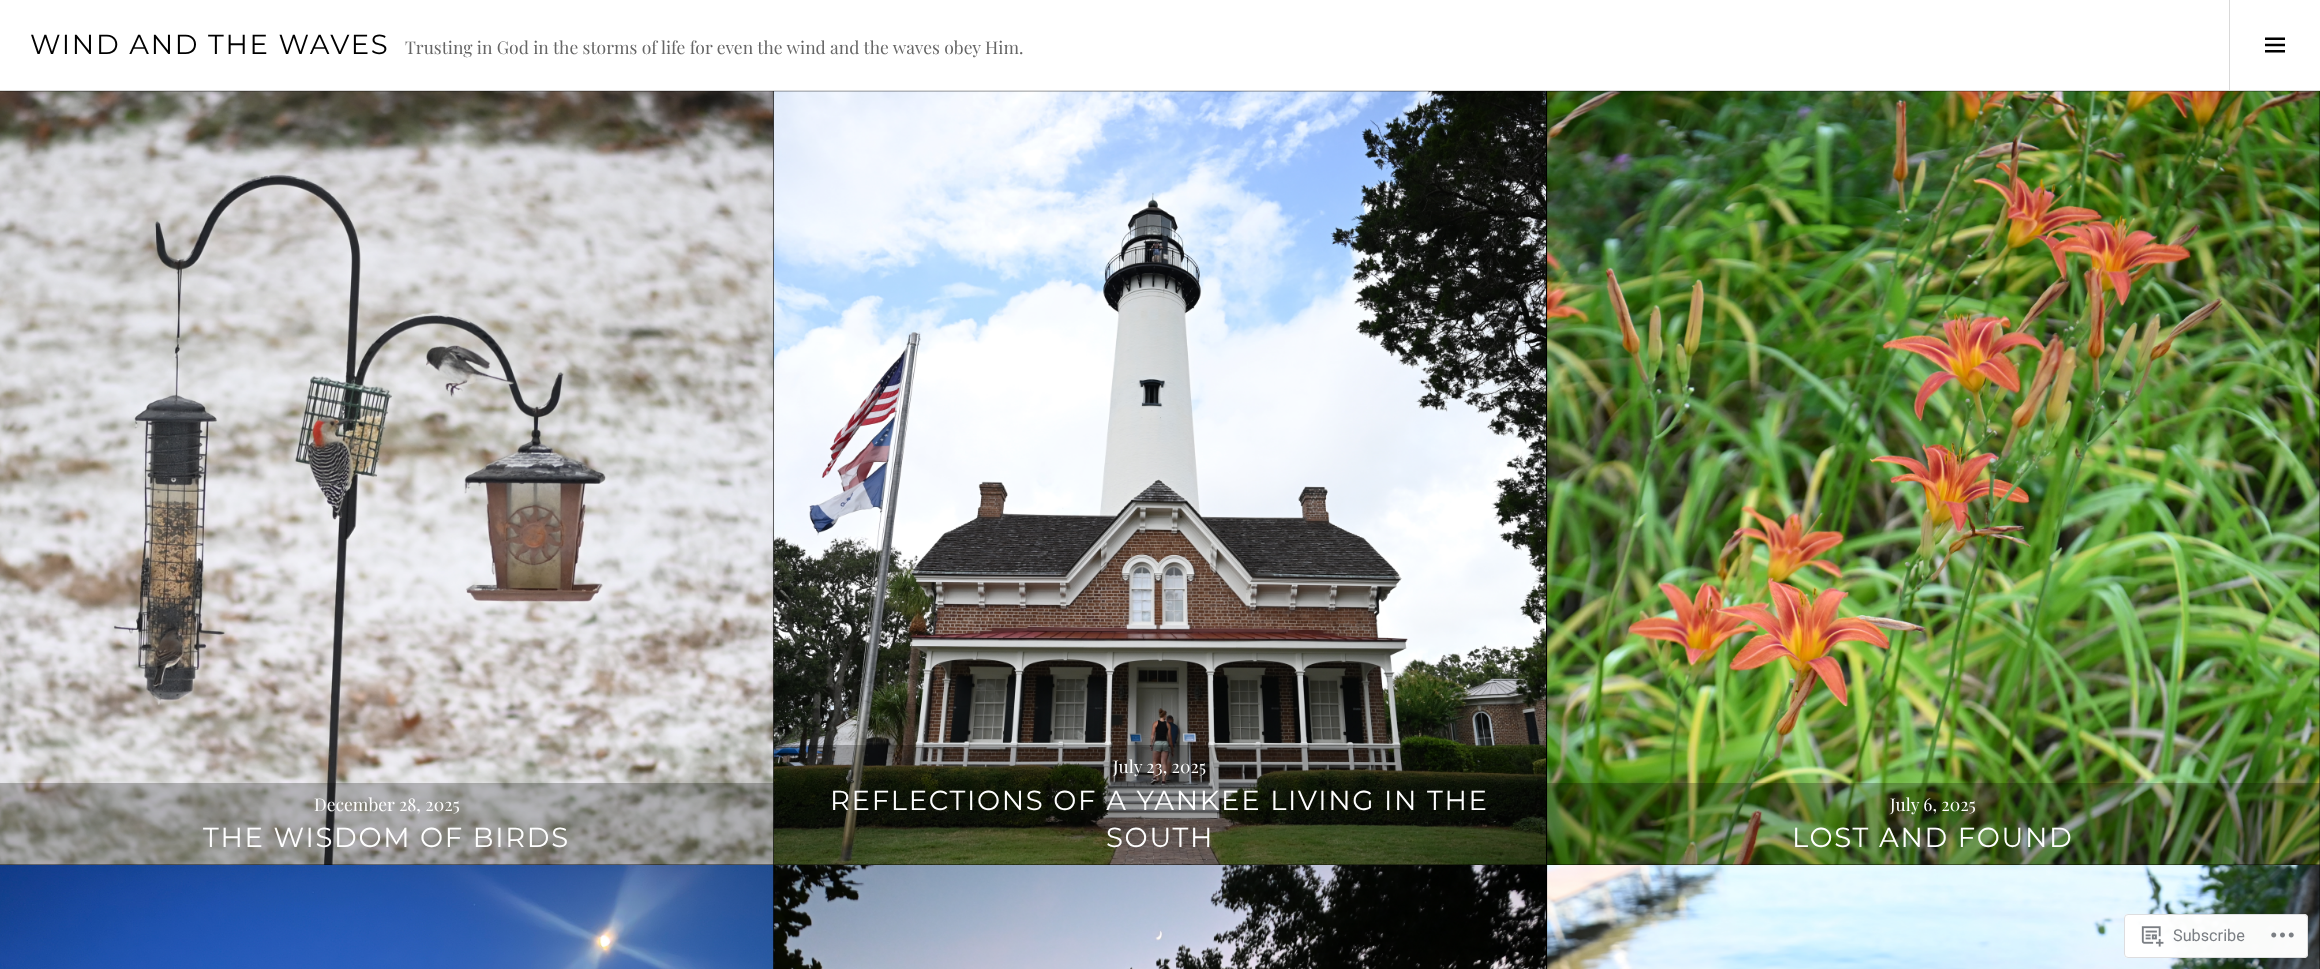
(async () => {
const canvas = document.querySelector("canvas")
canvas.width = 2320
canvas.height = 969
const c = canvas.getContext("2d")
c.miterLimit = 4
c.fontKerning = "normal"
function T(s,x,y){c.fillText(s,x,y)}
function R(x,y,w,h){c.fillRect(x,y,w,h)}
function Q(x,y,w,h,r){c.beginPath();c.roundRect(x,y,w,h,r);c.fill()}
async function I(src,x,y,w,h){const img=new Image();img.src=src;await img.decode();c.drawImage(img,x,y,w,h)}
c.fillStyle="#fff"
R(0,0,2320,969)
c.fillStyle="#d9d9d9"
R(0,90,2320,1)
c.letterSpacing="1.7px"
c.font="27.5px Montserrat"
c.fillStyle="#000"
T("WIND AND THE WAVES",30,54)
c.letterSpacing="0px"
c.font="17.5px Playfair Display"
c.fillStyle="#666"
T("Trusting in God in the storms of life for even the wind and the waves obey Him.",405,54)
c.fillStyle="#d9d9d9"
R(2229,0,1,90)
await I("1.png",2265,37,20,16)
c.fillStyle="#000"
R(0,91,2320,774)
await I("2.png",0,91,774,774)
await I("3.png",773,91,773,774)
c.fillStyle="#00000040"
R(0,783,774,82)
c.fillStyle="#fff"
T("December 28, 2025",314,811)
c.letterSpacing="1.7px"
c.font="27.5px Montserrat"
T("THE WISDOM OF BIRDS",203,847)
c.fillStyle="#00000040"
R(774,745,772,120)
c.letterSpacing="0px"
c.font="17.5px Playfair Display"
c.fillStyle="#fff"
T("July 23, 2025",1113,773)
c.letterSpacing="1.7px"
c.font="27.5px Montserrat"
T("REFLECTIONS OF A YANKEE LIVING IN THE",830,810)
T("SOUTH",1106,847)
await I("4.png",1547,91,773,774)
c.fillStyle="#00000040"
R(1547,783,773,82)
c.letterSpacing="0px"
c.font="17.5px Playfair Display"
c.fillStyle="#fff"
T("July 6, 2025",1890,811)
c.letterSpacing="1.7px"
c.font="27.5px Montserrat"
T("LOST AND FOUND",1792,847)
c.fillStyle="#000"
R(773,865,1,104)
await I("5.png",0,865,774,104)
await I("6.png",773,865,773,104)
R(1546,865,774,104)
await I("7.png",1547,865,773,104)
c.fillStyle="#fffffffa"
Q(2124,914,184,44,4)
c.beginPath()
c.roundRect(2124.5,914.5,183,43,3.5)
c.strokeStyle="#dcdcdefa"
c.stroke()
await I("8.png",2141,926,23,21)
c.letterSpacing="0px"
c.font="16.25px Roboto"
c.fillStyle="#7b7f84"
T("Subscribe",2173,941)
await I("9.png",2271,932,23,6)
})()
